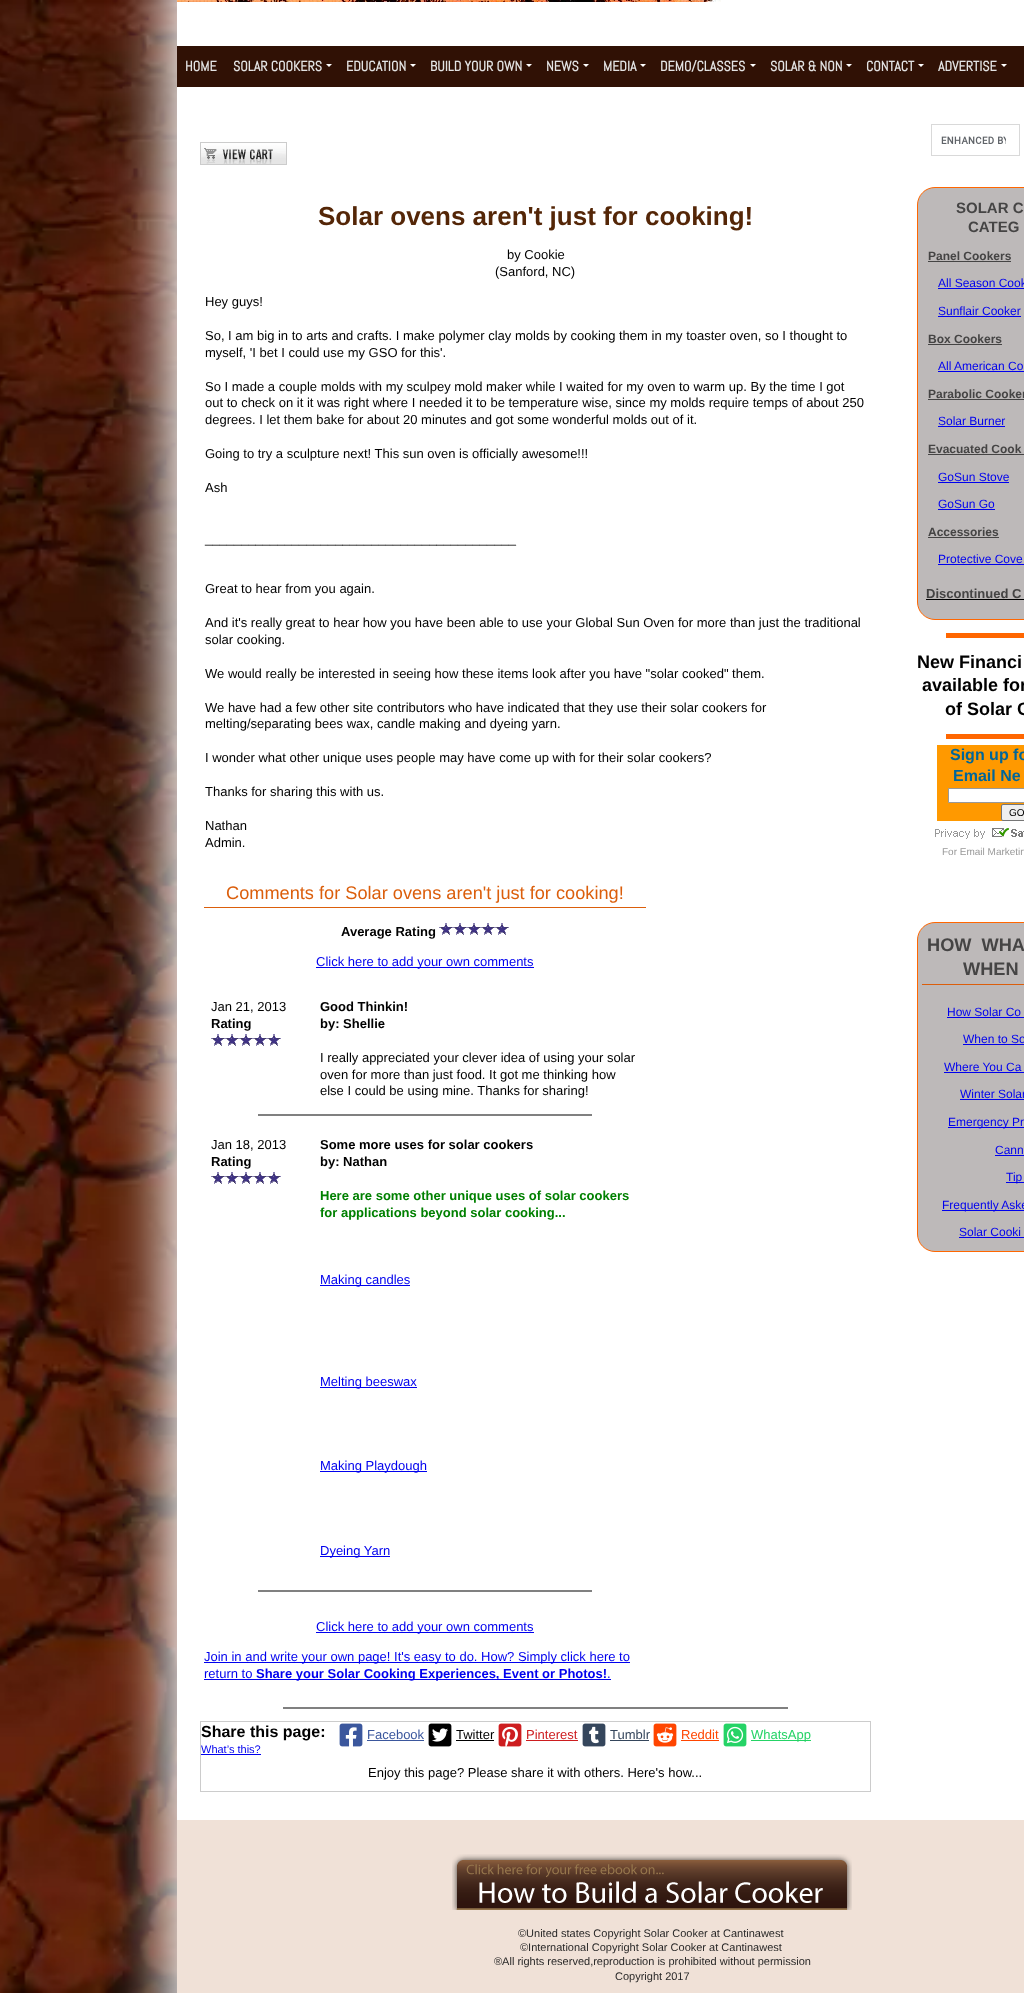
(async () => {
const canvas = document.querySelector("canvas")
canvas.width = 1024
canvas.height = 1993
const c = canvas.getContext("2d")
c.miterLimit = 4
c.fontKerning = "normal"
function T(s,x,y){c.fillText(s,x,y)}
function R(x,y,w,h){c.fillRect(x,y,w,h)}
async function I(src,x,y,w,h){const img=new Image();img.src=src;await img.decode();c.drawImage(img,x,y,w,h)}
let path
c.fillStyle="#fff"
R(0,0,1024,1993)
await I("1.png",0,0,177,1993)
c.filter="blur(27.5px)"
c.beginPath()
c.rect(165,-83,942,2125)
c.fill()
c.filter="none"
await I("2.png",177,0,544,2)
c.fillStyle="#301105"
R(177,46,847,41)
c.font="bold 14px Abel"
c.fillStyle="#e3e3e3"
T("HOME",185,71)
T("SOLAR COOKERS",233,71)
c.fillStyle="#fff"
path = new Path2D("M326 64h6l-3 3z")
c.fill(path)
c.fillStyle="#e3e3e3"
T("EDUCATION",346,71)
c.fillStyle="#fff"
path = new Path2D("M410 64h6l-3 3z")
c.fill(path)
c.fillStyle="#e3e3e3"
T("BUILD YOUR OWN",430,71)
c.fillStyle="#fff"
path = new Path2D("M526 64h6l-3 3z")
c.fill(path)
c.fillStyle="#e3e3e3"
T("NEWS",546,71)
c.fillStyle="#fff"
path = new Path2D("M583 64h6l-3 3z")
c.fill(path)
c.fillStyle="#e3e3e3"
T("MEDIA",603,71)
c.fillStyle="#fff"
path = new Path2D("M640 64h6l-3 3z")
c.fill(path)
c.fillStyle="#e3e3e3"
T("DEMO/CLASSES",660,71)
c.fillStyle="#fff"
path = new Path2D("M750 64h6l-3 3z")
c.fill(path)
c.fillStyle="#e3e3e3"
T("SOLAR & NON",770,71)
c.fillStyle="#fff"
path = new Path2D("M846 64h6l-3 3z")
c.fill(path)
c.fillStyle="#e3e3e3"
T("CONTACT",866,71)
c.fillStyle="#fff"
path = new Path2D("M918 64h6l-3 3z")
c.fill(path)
c.fillStyle="#e3e3e3"
T("ADVERTISE",938,71)
c.fillStyle="#fff"
path = new Path2D("M1001 64h6l-3 3z")
c.fill(path)
await I("3.png",200,142,87,23)
c.font="bold 26px Liberation Sans"
c.fillStyle="#542607"
T("Solar ovens aren't just for cooking!",318,225)
c.font="13px Liberation Sans"
c.fillStyle="#000"
T("by Cookie",507,259)
T("(Sanford, NC)",495,276)
T("Hey guys!",205,306)
T("So, I am big in to arts and crafts. I make polymer clay molds by cooking them in my toaster oven, so I thought to",205,340)
T("myself, 'I bet I could use my GSO for this'.",205,357)
T("So I made a couple molds with my sculpey mold maker while I waited for my oven to warm up. By the time I got",205,391)
T("out to check on it it was right where I needed it to be temperature wise, since my molds require temps of about 250",205,407)
T("degrees. I let them bake for about 20 minutes and got some wonderful molds out of it.",205,424)
T("Going to try a sculpture next! This sun oven is officially awesome!!!",205,458)
T("Ash",205,492)
T("___________________________________________",205,543)
T("Great to hear from you again.",205,593)
T("And it's really great to hear how you have been able to use your Global Sun Oven for more than just the traditional",205,627)
T("solar cooking.",205,644)
T("We would really be interested in seeing how these items look after you have \"solar cooked\" them.",205,678)
T("We have had a few other site contributors who have indicated that they use their solar cookers for",205,712)
T("melting/separating bees wax, candle making and dyeing yarn.",205,728)
T("I wonder what other unique uses people may have come up with for their solar cookers?",205,762)
T("Thanks for sharing this with us.",205,796)
T("Nathan",205,830)
T("Admin.",205,847)
c.fillStyle="#db5e0b"
R(204,907,442,1)
c.font="18.2px Liberation Sans"
T("Comments for Solar ovens aren't just for cooking!",226,899)
c.font="bold 13px Liberation Sans"
c.fillStyle="#000"
T("Average Rating",341,936)
await I("4.png",439,923,14,12)
await I("4.png",453,923,14,12)
await I("4.png",467,923,14,12)
await I("4.png",481,923,14,12)
await I("4.png",495,923,14,12)
c.fillStyle="#00e"
R(316,967,218,1)
c.font="13px Liberation Sans"
T("Click here to add your own comments",316,966)
c.fillStyle="#000"
T("Jan 21, 2013",211,1011)
c.font="bold 13px Liberation Sans"
T("Rating",211,1028)
await I("4.png",211,1034,14,12)
await I("4.png",225,1034,14,12)
await I("4.png",239,1034,14,12)
await I("4.png",253,1034,14,12)
await I("4.png",267,1034,14,12)
T("Good Thinkin!",320,1011)
T("by: Shellie",320,1028)
c.font="13px Liberation Sans"
T("I really appreciated your clever idea of using your solar",320,1062)
T("oven for more than just food. It got me thinking how",320,1079)
T("else I could be using mine. Thanks for sharing!",320,1095)
c.fillStyle="#808080"
R(258,1114,334,2)
c.fillStyle="#000"
T("Jan 18, 2013",211,1149)
c.font="bold 13px Liberation Sans"
T("Rating",211,1166)
await I("4.png",211,1172,14,12)
await I("4.png",225,1172,14,12)
await I("4.png",239,1172,14,12)
await I("4.png",253,1172,14,12)
await I("4.png",267,1172,14,12)
T("Some more uses for solar cookers",320,1149)
T("by: Nathan",320,1166)
c.fillStyle="#008000"
T("Here are some other unique uses of solar cookers",320,1200)
T("for applications beyond solar cooking...",320,1217)
c.fillStyle="#00e"
R(320,1285,90,1)
c.font="13px Liberation Sans"
T("Making candles",320,1284)
R(320,1387,97,1)
T("Melting beeswax",320,1386)
R(320,1471,107,1)
T("Making Playdough",320,1470)
R(320,1556,70,1)
T("Dyeing Yarn",320,1555)
c.fillStyle="#808080"
R(258,1590,334,2)
c.fillStyle="#00e"
R(316,1632,218,1)
T("Click here to add your own comments",316,1631)
R(204,1662,426,1)
T("Join in and write your own page! It's easy to do. How? Simply click here to",204,1661)
T("return to",204,1678)
R(204,1679,407,1)
c.font="bold 13px Liberation Sans"
T("Share your Solar Cooking Experiences, Event or Photos!",256,1678)
c.font="13px Liberation Sans"
T(".",607,1678)
c.fillStyle="#808080"
R(283,1707,505,2)
c.strokeStyle="#ccc"
c.strokeRect(200.5,1721.5,670,70)
c.font="bold 16px Liberation Sans"
c.fillStyle="#000"
T("Share this page:",201,1737)
c.font="11px Liberation Sans"
c.fillStyle="#00e"
T("What’s this?",201,1753)
R(201,1754,60,1)
await I("5.png",339,1723,24,24)
c.font="13px Liberation Sans"
c.fillStyle="#3b579d"
T("Facebook",367,1739)
R(367,1740,57,1)
await I("6.png",428,1723,24,24)
c.fillStyle="#000"
T("Twitter",456,1739)
R(456,1740,38,1)
await I("7.png",498,1723,24,24)
c.fillStyle="#cd1d1f"
T("Pinterest",526,1739)
R(526,1740,52,1)
await I("8.png",582,1723,24,24)
c.fillStyle="#35465c"
T("Tumblr",610,1739)
R(610,1740,39,1)
await I("9.png",653,1723,24,24)
c.fillStyle="#ff4500"
T("Reddit",681,1739)
R(681,1740,38,1)
await I("10.png",723,1723,24,24)
c.fillStyle="#25d366"
R(751,1740,60,1)
T("WhatsApp",751,1739)
c.fillStyle="#000"
T("Enjoy this page? Please share it with others. Here's how...",368,1777)
c.strokeStyle="#d9d9d9"
c.strokeRect(931.5,124.5,88,31)
await I("11.png",941,136,65,8)
c.fillStyle="#bdb9b9"
c.beginPath()
c.roundRect(917.5,187.5,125,432,17.5)
c.fill()
c.strokeStyle="#f60"
c.stroke()
c.font="bold 15px Liberation Sans"
c.fillStyle="#454444"
T("SOLAR C",956,213)
T("CATEG",968,232)
c.font="bold 12px Liberation Sans"
T("Panel Cookers",928,260)
R(928,261,83,1)
c.font="12px Liberation Sans"
c.fillStyle="#00e"
T("All Season Cook",938,287)
R(938,288,86,1)
T("Sunflair Cooker",938,315)
R(938,316,83,1)
c.font="bold 12px Liberation Sans"
c.fillStyle="#454444"
T("Box Cookers",928,343)
R(928,344,74,1)
c.font="12px Liberation Sans"
c.fillStyle="#00e"
T("All American Co",938,370)
R(938,371,86,1)
c.font="bold 12px Liberation Sans"
c.fillStyle="#454444"
T("Parabolic Cooker",928,398)
R(928,399,96,1)
c.font="12px Liberation Sans"
c.fillStyle="#00e"
T("Solar Burner",938,425)
R(938,426,67,1)
c.font="bold 12px Liberation Sans"
c.fillStyle="#454444"
T("Evacuated Cook",928,453)
R(928,454,96,1)
c.font="12px Liberation Sans"
c.fillStyle="#00e"
T("GoSun Stove",938,481)
R(938,482,71,1)
T("GoSun Go",938,508)
R(938,509,57,1)
c.font="bold 12px Liberation Sans"
c.fillStyle="#454444"
T("Accessories",928,536)
R(928,537,71,1)
c.font="12px Liberation Sans"
c.fillStyle="#00e"
T("Protective Cove",938,563)
R(938,564,86,1)
c.font="bold 13px Liberation Sans"
c.fillStyle="#454444"
T("Discontinued C",926,598)
c.fillStyle="#000"
R(926,599,98,1)
c.fillStyle="#f60"
R(946,633,78,5)
c.font="bold 18px Liberation Sans"
c.fillStyle="#000"
T("New Financi",917,668)
T("available for",922,691)
T("of Solar C",945,715)
c.fillStyle="#f60"
R(946,734,78,5)
c.fillStyle="#f90"
R(937,745,87,76)
c.font="bold 16px Liberation Sans"
c.fillStyle="#069"
T("Sign up fo",950,760)
T("Email Ne",953,781)
c.fillStyle="#fff"
c.beginPath()
c.rect(948.5,788.5,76,14)
c.fill()
c.strokeStyle="#999"
c.stroke()
c.fillStyle="#efefef"
c.beginPath()
c.roundRect(1001.5,804.5,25,16,1.5)
c.fill()
c.strokeStyle="#767676"
c.stroke()
c.font="10px Liberation Sans"
c.fillStyle="#000"
T("GO",1009,816)
await I("12.png",935,828,89,11)
c.fillStyle="#999"
T("For Email Marketin",942,855)
c.fillStyle="#bdb9b9"
c.beginPath()
c.roundRect(917.5,922.5,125,329,17.5)
c.fill()
c.strokeStyle="#f60"
c.stroke()
c.fillStyle="#db5e0b"
R(922,984,102,1)
c.font="bold 18.2px Liberation Sans"
c.fillStyle="#454444"
T("HOW  WHA",927,951)
T("WHEN",963,975)
c.font="12px Liberation Sans"
c.fillStyle="#00e"
T("How Solar Co",947,1016)
R(947,1017,77,1)
T("When to So",963,1043)
R(963,1044,61,1)
T("Where You Ca",944,1071)
R(944,1072,80,1)
T("Winter Solar",960,1098)
R(960,1099,64,1)
R(948,1127,76,1)
T("Emergency Pr",948,1126)
T("Cann",995,1154)
R(995,1155,29,1)
R(1006,1182,18,1)
T("Tip",1006,1181)
R(942,1210,82,1)
T("Frequently Aske",942,1209)
T("Solar Cooki",959,1236)
R(959,1237,65,1)
c.fillStyle="#f0e1d7"
R(177,1820,847,173)
await I("13.png",452,1854,400,56)
c.font="11px Liberation Sans"
c.fillStyle="#292828"
T("©United states Copyright Solar Cooker at Cantinawest",518,1937)
T("©International Copyright Solar Cooker at Cantinawest",520,1951)
T("®All rights reserved,reproduction is prohibited without permission",494,1965)
T("Copyright 2017",615,1980)
})()
